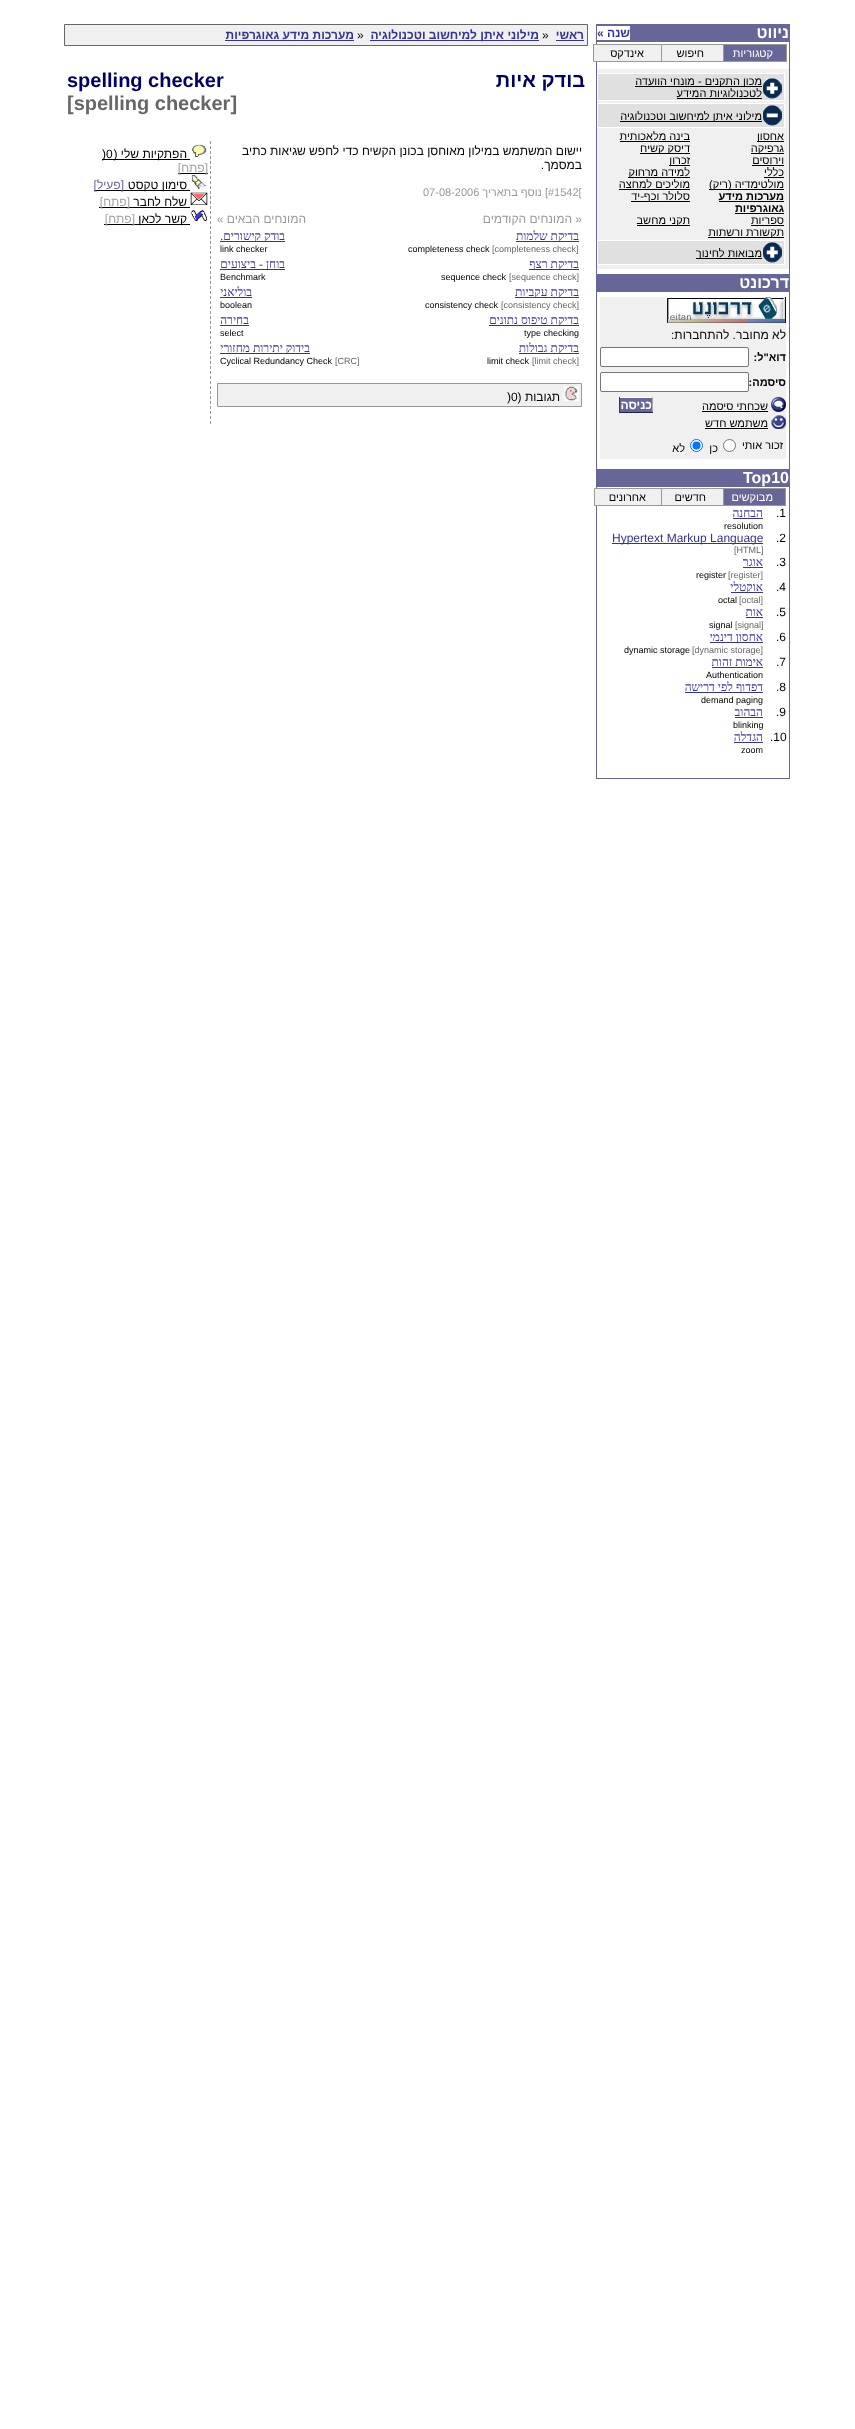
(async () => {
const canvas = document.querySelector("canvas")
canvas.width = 855
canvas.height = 2429
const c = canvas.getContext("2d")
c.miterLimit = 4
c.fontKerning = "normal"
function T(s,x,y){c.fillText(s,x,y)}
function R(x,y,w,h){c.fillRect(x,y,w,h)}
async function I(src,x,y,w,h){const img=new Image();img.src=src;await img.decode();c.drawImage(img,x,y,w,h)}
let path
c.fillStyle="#fff"
R(0,0,855,2429)
c.fillStyle="#669"
R(789,24,1,755)
R(596,24,193,18)
c.direction="rtl"
c.font="bold 16px Liberation Sans"
c.fillStyle="#fff"
T("ניווט",789,38)
R(597,26,33,14)
c.font="bold 12px Liberation Sans"
c.fillStyle="#339"
T("שנה »",630,37)
c.fillStyle="#669"
R(724,45,62,16)
c.strokeStyle="#999"
c.strokeRect(718.5,44.5,68,17)
c.font="11px Liberation Sans"
c.fillStyle="#fff"
T("קטגוריות",773,57)
c.fillStyle="#f0f0f0"
R(662,45,61,16)
c.strokeRect(656.5,44.5,67,17)
c.fillStyle="#000"
T("חיפוש",704,57)
c.fillStyle="#669"
R(596,42,1,737)
c.fillStyle="#f0f0f0"
c.beginPath()
c.rect(593.5,44.5,68,17)
c.fill()
c.stroke()
c.fillStyle="#000"
T("אינדקס",644,57)
c.fillStyle="#f0f0f0"
R(597,69,192,200)
c.fillStyle="#e0e0e0"
c.beginPath()
c.rect(597.5,73.5,187,27)
c.fill()
c.strokeStyle="#fff"
c.stroke()
await I("1.png",763,78,19,21)
c.fillStyle="#000"
R(635,86,127,1)
T("מכון התקנים - מונחי הוועדה",762,85)
T("לטכנולוגיות המידע",762,97)
R(677,98,85,1)
c.fillStyle="#e0e0e0"
c.beginPath()
c.rect(597.5,103.5,187,24)
c.fill()
c.stroke()
await I("2.png",763,105,19,21)
c.fillStyle="#000"
R(620,121,142,1)
T("מילוני איתן למיחשוב וטכנולוגיה",762,120)
R(757,141,27,1)
T("אחסון",784,140)
T("בינה מלאכותית",690,140)
R(620,141,70,1)
R(751,153,33,1)
T("גרפיקה",784,152)
R(640,153,50,1)
T("דיסק קשיח",690,152)
T("וירוסים",784,164)
R(752,165,32,1)
R(669,165,21,1)
T("זכרון",690,164)
T("כללי",784,176)
R(764,177,20,1)
R(628,177,62,1)
T("למידה מרחוק",690,176)
R(709,189,75,1)
T("מולטימדיה (ריק)",784,188)
T("מוליכים למחצה",690,188)
R(619,189,71,1)
c.font="bold 11px Liberation Sans"
T("מערכות מידע",784,200)
R(719,201,65,1)
T("גאוגרפיות",784,212)
R(735,213,49,1)
R(631,201,59,1)
c.font="11px Liberation Sans"
T("סלולר וכף-יד",690,200)
T("ספריות",784,224)
R(751,225,33,1)
R(637,225,53,1)
T("תקני מחשב",690,224)
R(708,237,76,1)
T("תקשורת ורשתות",784,236)
c.fillStyle="#e0e0e0"
c.beginPath()
c.rect(597.5,240.5,187,24)
c.fill()
c.stroke()
await I("1.png",763,242,19,21)
c.fillStyle="#000"
R(696,258,66,1)
T("מבואות לחינוך",762,257)
c.fillStyle="#669"
R(597,274,192,18)
c.font="bold 16px Liberation Sans"
c.fillStyle="#fff"
T("דרכונט",789,288)
c.fillStyle="#f0f0f0"
R(600,297,67,26)
await I("3.png",667,297,119,26)
R(600,323,186,136)
c.font="12px Liberation Sans"
c.fillStyle="#000"
T("לא מחובר. להתחברות:",786,339)
c.font="bold 11px Liberation Sans"
T("דוא\"ל:",786,361)
c.fillStyle="#fff"
c.beginPath()
c.roundRect(600.5,347.5,148,19,1.5)
c.fill()
c.strokeStyle="#767676"
c.stroke()
c.fillStyle="#000"
T("סיסמה:",786,386)
c.fillStyle="#fff"
c.beginPath()
c.roundRect(600.5,372.5,148,19,1.5)
c.fill()
c.stroke()
await I("4.png",771,397,15,15)
c.font="11px Liberation Sans"
c.fillStyle="#000"
T("שכחתי סיסמה",768,410)
R(702,411,66,1)
await I("5.png",771,414,15,15)
T("משתמש חדש",768,427)
R(705,428,63,1)
c.fillStyle="#669"
R(620,398,32,14)
c.fillStyle="#fff"
R(619,397,34,1)
c.fillStyle="#aaa"
R(652,397,1,16)
c.fillStyle="#224"
R(619,412,34,1)
c.fillStyle="#336"
R(619,397,1,16)
c.font="bold 12px Liberation Sans"
c.fillStyle="#fff"
T("כניסה",652,409)
c.font="11px Liberation Sans"
c.fillStyle="#000"
T("זכור אותי",783,449)
c.fillStyle="#fff"
c.beginPath()
c.arc(729.5,445.5,6,0,7)
c.fill()
c.stroke()
c.fillStyle="#000"
T("כן",718,452)
c.fillStyle="#fff"
c.beginPath()
c.arc(696.5,445.5,6,0,7)
c.fill()
c.strokeStyle="#0075ff"
c.stroke()
c.fillStyle="#0075ff"
c.beginPath()
c.arc(696.5,445.5,4,0,7)
c.fill()
c.fillStyle="#000"
T("לא",685,452)
c.fillStyle="#669"
R(597,469,192,18)
c.direction="ltr"
c.font="bold 16px Liberation Sans"
c.fillStyle="#fff"
T("Top10",743,483)
c.fillStyle="#669"
R(724,489,61,16)
c.strokeStyle="#999"
c.strokeRect(718.5,488.5,67,17)
c.direction="rtl"
c.font="11px Liberation Sans"
c.fillStyle="#fff"
T("מבוקשים",773,501)
c.fillStyle="#f0f0f0"
R(662,489,61,16)
c.strokeRect(656.5,488.5,67,17)
c.fillStyle="#000"
T("חדשים",706,501)
c.fillStyle="#f0f0f0"
c.beginPath()
c.rect(594.5,488.5,67,17)
c.fill()
c.stroke()
c.fillStyle="#000"
T("אחרונים",646,501)
c.direction="ltr"
c.font="12px Liberation Sans"
T(".1",776,517)
c.direction="rtl"
c.font="12px Liberation Serif"
c.fillStyle="#339"
T("הבחנה",763,517)
R(733,518,30,1)
c.direction="ltr"
c.font="9px Liberation Sans"
c.fillStyle="#000"
T("resolution",724,529)
c.font="12px Liberation Sans"
T(".2",776,542)
c.fillStyle="#339"
R(612,543,151,1)
T("Hypertext Markup Language",612,542)
c.font="9px Liberation Sans"
c.fillStyle="#666"
T("[HTML]",734,553)
c.font="12px Liberation Sans"
c.fillStyle="#000"
T(".3",776,566)
c.direction="rtl"
c.font="12px Liberation Serif"
c.fillStyle="#339"
T("אוגר",763,566)
R(743,567,20,1)
c.direction="ltr"
c.font="9px Liberation Sans"
c.fillStyle="#666"
T("[register]",728,578)
c.fillStyle="#000"
T("register",696,578)
c.font="12px Liberation Sans"
T(".4",776,591)
c.fillStyle="#339"
R(731,592,32,1)
c.direction="rtl"
c.font="12px Liberation Serif"
T("אוקטלי",763,591)
c.direction="ltr"
c.font="9px Liberation Sans"
c.fillStyle="#666"
T("[octal]",739,603)
c.fillStyle="#000"
T("octal",718,603)
c.font="12px Liberation Sans"
T(".5",776,616)
c.direction="rtl"
c.font="12px Liberation Serif"
c.fillStyle="#339"
T("אות",763,616)
R(746,617,17,1)
c.direction="ltr"
c.font="9px Liberation Sans"
c.fillStyle="#666"
T("[signal]",735,628)
c.fillStyle="#000"
T("signal",709,628)
c.font="12px Liberation Sans"
T(".6",776,641)
c.fillStyle="#339"
R(710,642,53,1)
c.direction="rtl"
c.font="12px Liberation Serif"
T("אחסון דינמי",763,641)
c.direction="ltr"
c.font="9px Liberation Sans"
c.fillStyle="#666"
T("[dynamic storage]",692,653)
c.fillStyle="#000"
T("dynamic storage",624,653)
c.font="12px Liberation Sans"
T(".7",776,666)
c.direction="rtl"
c.font="12px Liberation Serif"
c.fillStyle="#339"
T("אימות זהות",763,666)
R(712,667,51,1)
c.direction="ltr"
c.font="9px Liberation Sans"
c.fillStyle="#000"
T("Authentication",706,678)
c.font="12px Liberation Sans"
T(".8",776,691)
c.fillStyle="#339"
R(685,692,78,1)
c.direction="rtl"
c.font="12px Liberation Serif"
T("דפדוף לפי דרישה",763,691)
c.direction="ltr"
c.font="9px Liberation Sans"
c.fillStyle="#000"
T("demand paging",701,703)
c.font="12px Liberation Sans"
T(".9",776,716)
c.direction="rtl"
c.font="12px Liberation Serif"
c.fillStyle="#339"
T("הבהוב",763,716)
R(735,717,28,1)
c.direction="ltr"
c.font="9px Liberation Sans"
c.fillStyle="#000"
T("blinking",733,728)
c.font="12px Liberation Sans"
T(".10",770,741)
c.direction="rtl"
c.font="12px Liberation Serif"
c.fillStyle="#339"
T("הגדלה",763,741)
R(734,742,29,1)
c.direction="ltr"
c.font="9px Liberation Sans"
c.fillStyle="#000"
T("zoom",741,753)
c.fillStyle="#669"
R(597,778,192,1)
c.fillStyle="#f0f0f0"
c.beginPath()
c.rect(64.5,24.5,523,21)
c.fill()
c.strokeStyle="#666"
c.stroke()
c.direction="rtl"
c.font="bold 12px Liberation Sans"
c.fillStyle="#339"
T("ראשי",584,39)
R(556,40,28,1)
c.direction="ltr"
c.font="12px Liberation Sans"
c.fillStyle="#000"
T("»",542,39)
c.fillStyle="#339"
R(370,40,169,1)
c.direction="rtl"
c.font="bold 12px Liberation Sans"
T("מילוני איתן למיחשוב וטכנולוגיה",539,39)
c.direction="ltr"
c.font="12px Liberation Sans"
c.fillStyle="#000"
T("»",357,39)
c.direction="rtl"
c.font="bold 12px Liberation Sans"
c.fillStyle="#339"
T("מערכות מידע גאוגרפיות",354,39)
R(225,40,129,1)
c.font="bold 20px Liberation Sans"
c.fillStyle="#006"
T("בודק איות",585,87)
c.direction="ltr"
T("spelling checker",67,87)
c.fillStyle="#666"
T("[spelling checker]",67,110)
c.direction="rtl"
c.font="12px Liberation Sans"
c.fillStyle="#000"
T("יישום המשתמש במילון מאוחסן בכונן הקשיח כדי לחפש שגיאות כתיב",582,155)
T("במסמך.",582,169)
c.font="11px Liberation Sans"
c.fillStyle="#999"
T("] נוסף בתאריך",548,196)
c.direction="ltr"
T("#1542[",548,196)
T("07-08-2006",423,196)
c.direction="rtl"
c.font="12px Liberation Sans"
T("« המונחים הקודמים",582,223)
c.fillStyle="#339"
R(516,241,63,1)
c.font="12px Liberation Serif"
T("בדיקת שלמות",579,240)
c.direction="ltr"
c.font="9px Liberation Sans"
c.fillStyle="#666"
T("[completeness check]",492,252)
c.fillStyle="#000"
T("completeness check",408,252)
c.fillStyle="#339"
R(529,269,50,1)
c.direction="rtl"
c.font="12px Liberation Serif"
T("בדיקת רצף",579,268)
c.direction="ltr"
c.font="9px Liberation Sans"
c.fillStyle="#666"
T("[sequence check]",509,280)
c.fillStyle="#000"
T("sequence check",441,280)
c.fillStyle="#339"
R(515,297,64,1)
c.direction="rtl"
c.font="12px Liberation Serif"
T("בדיקת עקביות",579,296)
c.direction="ltr"
c.font="9px Liberation Sans"
c.fillStyle="#666"
T("[consistency check]",501,308)
c.fillStyle="#000"
T("consistency check",425,308)
c.fillStyle="#339"
R(489,325,90,1)
c.direction="rtl"
c.font="12px Liberation Serif"
T("בדיקת טיפוס נתונים",579,324)
c.direction="ltr"
c.font="9px Liberation Sans"
c.fillStyle="#000"
T("type checking",524,336)
c.fillStyle="#339"
R(519,353,60,1)
c.direction="rtl"
c.font="12px Liberation Serif"
T("בדיקת גבולות",579,352)
c.direction="ltr"
c.font="9px Liberation Sans"
c.fillStyle="#666"
T("[limit check]",532,364)
c.fillStyle="#000"
T("limit check",487,364)
c.direction="rtl"
c.font="12px Liberation Sans"
c.fillStyle="#999"
T("המונחים הבאים »",306,223)
c.fillStyle="#339"
R(220,241,65,1)
c.font="12px Liberation Serif"
T("בודק קישורים.",285,240)
c.direction="ltr"
c.font="9px Liberation Sans"
c.fillStyle="#000"
T("link checker",220,252)
c.fillStyle="#339"
R(220,269,65,1)
c.direction="rtl"
c.font="12px Liberation Serif"
T("בוחן - ביצועים",285,268)
c.direction="ltr"
c.font="9px Liberation Sans"
c.fillStyle="#000"
T("Benchmark",220,280)
c.direction="rtl"
c.font="12px Liberation Serif"
c.fillStyle="#339"
T("בוליאני",252,296)
R(220,297,32,1)
c.direction="ltr"
c.font="9px Liberation Sans"
c.fillStyle="#000"
T("boolean",220,308)
c.direction="rtl"
c.font="12px Liberation Serif"
c.fillStyle="#339"
T("בחירה",249,324)
R(220,325,29,1)
c.direction="ltr"
c.font="9px Liberation Sans"
c.fillStyle="#000"
T("select",220,336)
c.fillStyle="#339"
R(220,353,90,1)
c.direction="rtl"
c.font="12px Liberation Serif"
T("בידוק יתירות מחזורי",310,352)
c.direction="ltr"
c.font="9px Liberation Sans"
c.fillStyle="#666"
T("[CRC]",335,364)
c.fillStyle="#000"
T("Cyclical Redundancy Check",220,364)
c.fillStyle="#f0f0f0"
c.beginPath()
c.rect(217.5,383.5,364,23)
c.fill()
c.strokeStyle="#999"
c.stroke()
await I("6.png",564,386,15,15)
c.direction="rtl"
c.font="12px Liberation Sans"
c.fillStyle="#000"
T("תגובות (",560,401)
c.direction="ltr"
T(")0",507,401)
path = new Path2D("M210.5 141v283")
c.setLineDash([3,2])
c.stroke(path)
await I("7.png",192,144,15,13)
R(102,159,88,1)
c.direction="rtl"
T("הפתקיות שלי (",187,158)
c.direction="ltr"
T(")0",102,158)
R(178,173,30,1)
c.direction="rtl"
c.fillStyle="#a0a0a0"
T("[פתח]",208,172)
await I("8.png",191,175,15,14)
c.fillStyle="#000"
R(94,190,96,1)
T("סימון טקסט",187,189)
c.fillStyle="#669"
T("[פעיל]",124,189)
await I("9.png",190,192,18,13)
c.fillStyle="#000"
T("שלח לחבר",187,206)
R(99,207,91,1)
c.fillStyle="#a0a0a0"
T("[פתח]",130,206)
await I("10.png",191,210,16,11)
c.fillStyle="#000"
R(104,224,86,1)
T("קשר לכאן",187,223)
c.fillStyle="#a0a0a0"
T("[פתח]",135,223)
})()
